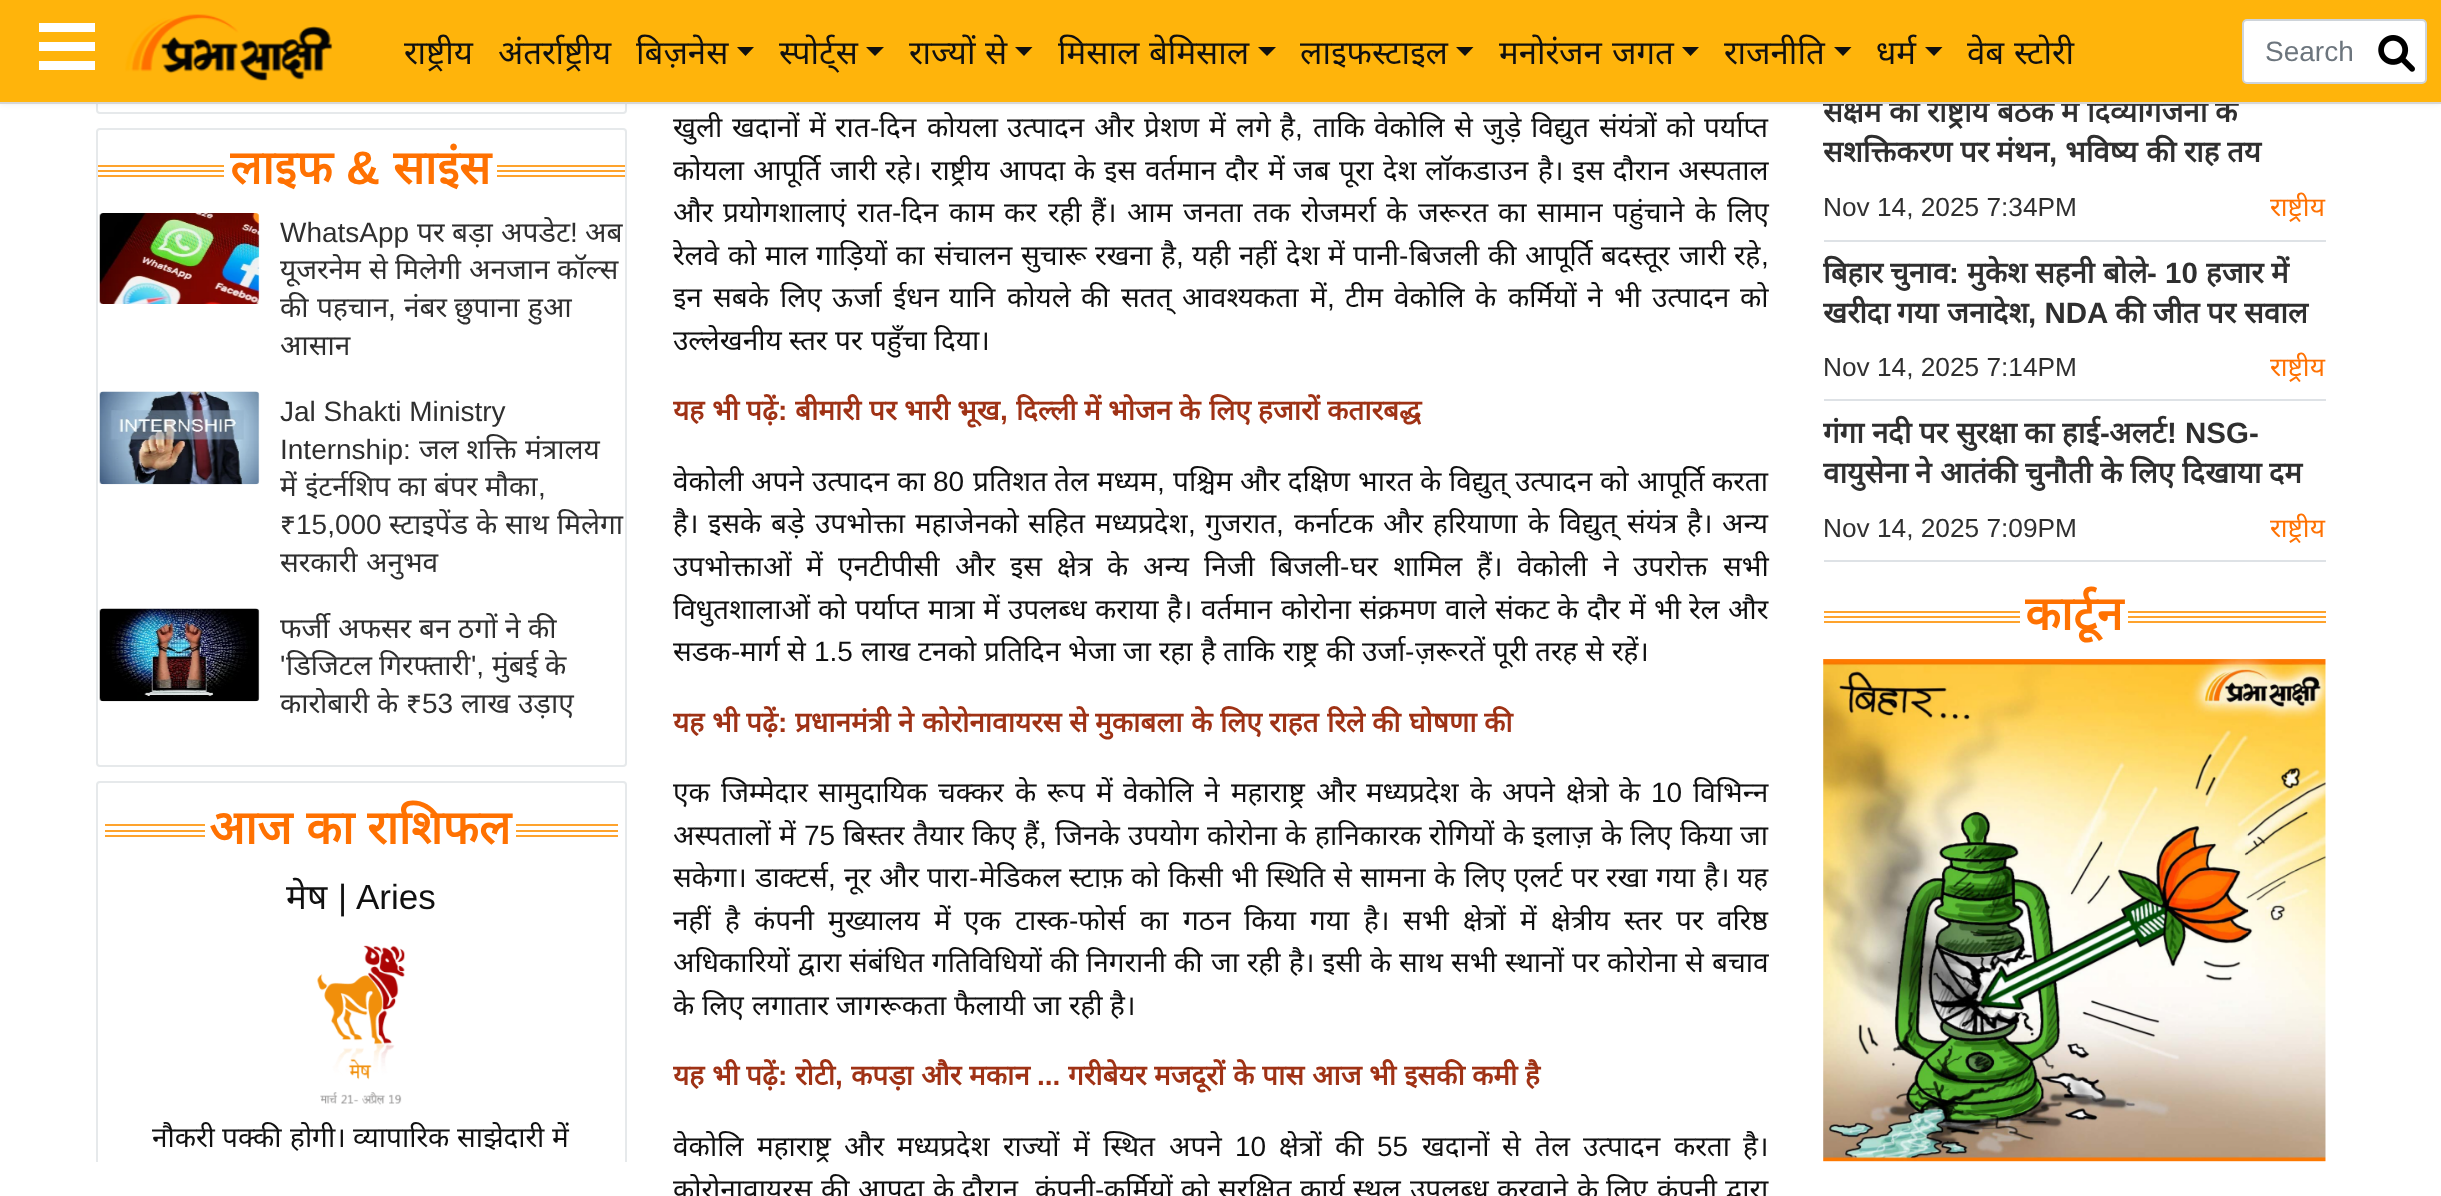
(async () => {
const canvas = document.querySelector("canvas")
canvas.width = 2441
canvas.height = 1196
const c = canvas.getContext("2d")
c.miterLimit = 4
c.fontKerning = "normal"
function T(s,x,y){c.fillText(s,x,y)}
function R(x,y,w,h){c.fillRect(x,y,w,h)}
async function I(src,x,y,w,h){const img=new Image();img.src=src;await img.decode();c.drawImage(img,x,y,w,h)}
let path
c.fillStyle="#fff"
R(0,0,2441,1196)
c.beginPath()
c.roundRect(97,-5,529,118,3)
c.strokeStyle="#e6e9eb"
c.lineWidth=2
c.stroke()
c.fillStyle="#0000001a"
c.filter="blur(3.5px)"
c.beginPath()
c.rect(0,0,2441,103)
c.fill()
c.filter="none"
c.font="bold 29.5px Noto Sans"
c.fillStyle="#2f2f2f"
T("सक्षम",1823,122)
T("की",1889,122)
T("राष्ट्रीय",1927,122)
T("बैठक",1997,122)
T("में",2061,122)
T("दिव्यांगजनों",2087,122)
T("के",2215,122)
c.fillStyle="#ffb40b"
R(0,0,2441,102)
c.fillStyle="#d6d6d6"
R(0,102,2441,2)
c.fillStyle="#fff"
R(39,23,56,9)
R(39,42,56,9)
R(39,61,56,9)
await I("1.png",125,14,208,67)
c.font="33px Noto Sans"
c.fillStyle="#101010"
T("राष्ट्रीय",404,64)
T("अंतर्राष्ट्रीय",498,64)
T("बिज़नेस",636,64)
path = new Path2D("M737 47h17l-8.5 9z")
c.fill(path)
T("स्पोर्ट्स",779,64)
path = new Path2D("M866 47h18l-9 9z")
c.fill(path)
T("राज्यों",909,64)
T("से",985,64)
path = new Path2D("M1015 47h17.5l-8.5 9z")
c.fill(path)
T("मिसाल",1058,64)
T("बेमिसाल",1149,64)
path = new Path2D("M1258 47h18l-9 9z")
c.fill(path)
T("लाइफस्टाइल",1300,64)
path = new Path2D("M1456 47h17.5l-8.5 9z")
c.fill(path)
T("मनोरंजन",1499,64)
T("जगत",1612,64)
path = new Path2D("M1682 47h17l-8.5 9z")
c.fill(path)
T("राजनीति",1724,64)
path = new Path2D("M1834 47h17.5l-8.5 9z")
c.fill(path)
T("धर्म",1876,64)
path = new Path2D("M1925 47h17.5l-8.5 9z")
c.fill(path)
T("वेब",1967,64)
T("स्टोरी",2014,64)
c.fillStyle="#fff"
c.beginPath()
c.roundRect(2243,20,183,63,4)
c.fill()
c.strokeStyle="#ced4da"
c.stroke()
c.font="28px Liberation Sans"
c.fillStyle="#6c757d"
T("Search",2265,61)
await I("2.png",2378,35,37,37)
c.beginPath()
c.roundRect(97,129,529,637,3)
c.strokeStyle="#e6e9eb"
c.stroke()
c.fillStyle="#fea32d"
R(98,170,527,2)
R(98,165,527,2)
R(98,175,527,2)
c.fillStyle="#fff"
R(224,165,273,12)
c.font="bold 47px Noto Sans"
c.fillStyle="#ff7101"
T("लाइफ",230,184)
c.font="bold 47px Liberation Sans"
T("&",346,184)
c.font="bold 47px Noto Sans"
T("साइंस",393,184)
await I("3.png",99,213,161,91)
c.font="28px Liberation Sans"
c.fillStyle="#2f2f2f"
T("WhatsApp",280,242)
c.font="28px Noto Sans"
T("पर",417,242)
T("बड़ा",452,242)
T("अपडेट",501,242)
c.font="28px Liberation Sans"
T("!",570,242)
c.font="28px Noto Sans"
T("अब",585,242)
T("यूजरनेम",280,279)
T("से",369,279)
T("मिलेगी",395,279)
T("अनजान",469,279)
T("कॉल्स",557,279)
T("की",280,317)
T("पहचान",317,317)
c.font="28px Liberation Sans"
T(",",388,317)
c.font="28px Noto Sans"
T("नंबर",404,317)
T("छुपाना",454,317)
T("हुआ",528,317)
T("आसान",280,355)
await I("4.png",99,391,161,94)
c.font="28px Liberation Sans"
T("Jal Shakti Ministry",280,421)
T("Internship:",280,459)
c.font="28px Noto Sans"
T("जल",419,459)
T("शक्ति",466,459)
T("मंत्रालय",525,459)
T("में",280,496)
T("इंटर्नशिप",305,496)
T("का",398,496)
T("बंपर",434,496)
T("मौका",485,496)
c.font="28px Liberation Sans"
T(",",538,496)
c.font="28px Noto Sans"
T("₹",280,534)
c.font="28px Liberation Sans"
T("15,000",296,534)
c.font="28px Noto Sans"
T("स्टाइपेंड",389,534)
T("के",476,534)
T("साथ",505,534)
T("मिलेगा",557,534)
T("सरकारी",280,572)
T("अनुभव",366,572)
await I("5.png",99,608,161,94)
T("फर्जी",280,638)
T("अफसर",338,638)
T("बन",419,638)
T("ठगों",458,638)
T("ने",505,638)
T("की",528,638)
c.font="28px Liberation Sans"
T("'",280,675)
c.font="28px Noto Sans"
T("डिजिटल",286,675)
T("गिरफ्तारी",379,675)
c.font="28px Liberation Sans"
T("',",471,675)
c.font="28px Noto Sans"
T("मुंबई",492,675)
T("के",545,675)
T("कारोबारी",280,713)
T("के",377,713)
T("₹",406,713)
c.font="28px Liberation Sans"
T("53",422,713)
c.font="28px Noto Sans"
T("लाख",461,713)
T("उड़ाए",518,713)
c.save()
c.beginPath()
c.rect(84,35,569,1127)
c.clip()
c.beginPath()
c.roundRect(97,782,529,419,3)
c.stroke()
c.restore()
c.fillStyle="#fea32d"
R(105,830,513,2)
R(105,824,513,2)
R(105,835,513,2)
c.fillStyle="#fff"
R(205,824,311,13)
c.font="bold 47px Noto Sans"
c.fillStyle="#ff7101"
T("आज",209,844)
T("का",306,844)
T("राशिफल",367,844)
c.font="35px Noto Sans"
c.fillStyle="#101010"
T("मेष",286,909)
c.wordSpacing="1px"
c.font="35px Liberation Sans"
T("| Aries",338,909)
await I("6.png",317,945,88,160)
c.wordSpacing="0px"
c.font="28px Noto Sans"
T("नौकरी",152,1147)
T("पक्की",222,1147)
T("होगी।",290,1147)
T("व्यापारिक",353,1147)
T("साझेदारी",457,1147)
T("में",552,1147)
T("खुली",673,137)
T("खदानों",732,137)
T("में",809,137)
T("रात",835,137)
c.font="28px Liberation Sans"
T("-",870,137)
c.font="28px Noto Sans"
T("दिन",879,137)
T("कोयला",927,137)
T("उत्पादन",1007,137)
T("और",1094,137)
T("प्रेशण",1144,137)
T("में",1209,137)
T("लगे",1236,137)
T("है",1280,137)
T("ताकि",1313,137)
T("वेकोलि",1374,137)
T("से",1454,137)
T("जुड़े",1483,137)
T("विद्युत",1531,137)
T("संयंत्रों",1599,137)
T("को",1666,137)
T("पर्याप्त",1704,137)
c.font="28px Liberation Sans"
T(",",1295,137)
c.font="28px Noto Sans"
T("कोयला",673,180)
T("आपूर्ति",753,180)
T("जारी",830,180)
T("रहे।",885,180)
T("राष्ट्रीय",931,180)
T("आपदा",999,180)
T("के",1074,180)
T("इस",1104,180)
T("वर्तमान",1145,180)
T("दौर",1225,180)
T("में",1268,180)
T("जब",1293,180)
T("पूरा",1339,180)
T("देश",1383,180)
T("लॉकडाउन",1425,180)
T("है।",1538,180)
T("इस",1572,180)
T("दौरान",1613,180)
T("अस्पताल",1678,180)
T("और",673,222)
T("प्रयोगशालाएं",723,222)
T("रात",857,222)
c.font="28px Liberation Sans"
T("-",892,222)
c.font="28px Noto Sans"
T("दिन",901,222)
T("काम",949,222)
T("कर",1004,222)
T("रही",1048,222)
T("हैं।",1091,222)
T("आम",1127,222)
T("जनता",1183,222)
T("तक",1253,222)
T("रोजमर्रा",1301,222)
T("के",1386,222)
T("जरूरत",1418,222)
T("का",1498,222)
T("सामान",1537,222)
T("पहुंचाने",1613,222)
T("के",1695,222)
T("लिए",1727,222)
T("रेलवे",673,265)
T("को",728,265)
T("माल",765,265)
T("गाड़ियों",816,265)
T("का",896,265)
T("संचालन",934,265)
T("सुचारू",1021,265)
T("रखना",1095,265)
T("है",1161,265)
T("यही",1192,265)
T("नहीं",1239,265)
T("देश",1286,265)
T("में",1328,265)
T("पानी",1353,265)
c.font="28px Liberation Sans"
T("-",1399,265)
c.font="28px Noto Sans"
T("बिजली",1409,265)
T("की",1488,265)
T("आपूर्ति",1525,265)
T("बदस्तूर",1601,265)
T("जारी",1679,265)
T("रहे",1734,265)
c.font="28px Liberation Sans"
T(",",1176,265)
T(",",1761,265)
c.font="28px Noto Sans"
T("इन",673,307)
T("सबके",713,307)
T("लिए",780,307)
T("ऊर्जा",832,307)
T("ईधन",893,307)
T("यानि",949,307)
T("कोयले",1007,307)
T("की",1081,307)
T("सतत्",1121,307)
T("आवश्यकता",1182,307)
T("में",1310,307)
c.font="28px Liberation Sans"
T(",",1327,307)
c.font="28px Noto Sans"
T("टीम",1345,307)
T("वेकोलि",1394,307)
T("के",1475,307)
T("कर्मियों",1508,307)
T("ने",1587,307)
T("भी",1614,307)
T("उत्पादन",1652,307)
T("को",1740,307)
T("उल्लेखनीय",673,350)
T("स्तर",789,350)
T("पर",835,350)
T("पहुँचा",871,350)
T("दिया।",934,350)
c.font="bold 28px Noto Sans"
c.fillStyle="#9f3215"
T("यह",673,420)
T("भी",712,420)
T("पढ़ें",746,420)
c.font="bold 28px Liberation Sans"
T(":",778,420)
c.font="bold 28px Noto Sans"
T("बीमारी",795,420)
T("पर",869,420)
T("भारी",904,420)
T("भूख",957,420)
c.font="bold 28px Liberation Sans"
T(",",1000,420)
c.font="bold 28px Noto Sans"
T("दिल्ली",1016,420)
T("में",1084,420)
T("भोजन",1108,420)
T("के",1179,420)
T("लिए",1209,420)
T("हजारों",1258,420)
T("कतारबद्ध",1327,420)
c.font="28px Noto Sans"
c.fillStyle="#101010"
T("वेकोली",673,491)
T("अपने",751,491)
T("उत्पादन",812,491)
T("का",897,491)
c.font="28px Liberation Sans"
T("80",933,491)
c.font="28px Noto Sans"
T("प्रतिशत",973,491)
T("तेल",1054,491)
T("मध्यम",1097,491)
c.font="28px Liberation Sans"
T(",",1157,491)
c.font="28px Noto Sans"
T("पश्चिम",1173,491)
T("और",1240,491)
T("दक्षिण",1288,491)
T("भारत",1358,491)
T("के",1420,491)
T("विद्युत्",1449,491)
T("उत्पादन",1515,491)
T("को",1600,491)
T("आपूर्ति",1637,491)
T("करता",1712,491)
T("है।",673,533)
T("इसके",708,533)
T("बड़े",771,533)
T("उपभोक्ता",815,533)
T("महाजेनको",915,533)
T("सहित",1028,533)
T("मध्यप्रदेश",1095,533)
c.font="28px Liberation Sans"
T(",",1188,533)
c.font="28px Noto Sans"
T("गुजरात",1205,533)
c.font="28px Liberation Sans"
T(",",1276,533)
c.font="28px Noto Sans"
T("कर्नाटक",1294,533)
T("और",1383,533)
T("हरियाणा",1433,533)
T("के",1528,533)
T("विद्युत्",1559,533)
T("संयंत्र",1627,533)
T("है।",1687,533)
T("अन्य",1722,533)
T("उपभोक्ताओं",673,576)
T("में",806,576)
T("एनटीपीसी",838,576)
T("और",955,576)
T("इस",1010,576)
T("क्षेत्र",1057,576)
T("के",1107,576)
T("अन्य",1143,576)
T("निजी",1204,576)
T("बिजली",1270,576)
c.font="28px Liberation Sans"
T("-",1340,576)
c.font="28px Noto Sans"
T("घर",1350,576)
T("शामिल",1393,576)
T("हैं।",1477,576)
T("वेकोली",1517,576)
T("ने",1603,576)
T("उपरोक्त",1633,576)
T("सभी",1723,576)
T("विधुतशालाओं",673,619)
T("को",818,619)
T("पर्याप्त",855,619)
T("मात्रा",928,619)
T("में",983,619)
T("उपलब्ध",1008,619)
T("कराया",1095,619)
T("है।",1167,619)
T("वर्तमान",1201,619)
T("कोरोना",1281,619)
T("संक्रमण",1359,619)
T("वाले",1445,619)
T("संकट",1495,619)
T("के",1557,619)
T("दौर",1587,619)
T("में",1629,619)
T("भी",1654,619)
T("रेल",1689,619)
T("और",1728,619)
T("सडक",673,661)
c.font="28px Liberation Sans"
T("-",731,661)
c.font="28px Noto Sans"
T("मार्ग",740,661)
T("से",787,661)
c.font="28px Liberation Sans"
T("1.5",814,661)
c.font="28px Noto Sans"
T("लाख",861,661)
T("टनको",918,661)
T("प्रतिदिन",984,661)
T("भेजा",1068,661)
T("जा",1123,661)
T("रहा",1159,661)
T("है",1201,661)
T("ताकि",1223,661)
T("राष्ट्र",1283,661)
T("की",1326,661)
T("उर्जा",1362,661)
c.font="28px Liberation Sans"
T("-",1405,661)
c.font="28px Noto Sans"
T("ज़रूरतें",1415,661)
T("पूरी",1493,661)
T("तरह",1535,661)
T("से",1585,661)
T("रहें।",1612,661)
c.font="bold 28px Noto Sans"
c.fillStyle="#9f3215"
T("यह",673,732)
T("भी",712,732)
T("पढ़ें",746,732)
c.font="bold 28px Liberation Sans"
T(":",778,732)
c.font="bold 28px Noto Sans"
T("प्रधानमंत्री",795,732)
T("ने",898,732)
T("कोरोनावायरस",922,732)
T("से",1069,732)
T("मुकाबला",1095,732)
T("के",1191,732)
T("लिए",1220,732)
T("राहत",1269,732)
T("रिले",1327,732)
T("की",1372,732)
T("घोषणा",1409,732)
T("की",1484,732)
c.font="28px Noto Sans"
c.fillStyle="#101010"
T("एक",673,802)
T("जिम्मेदार",721,802)
T("सामुदायिक",818,802)
T("चक्कर",938,802)
T("के",1015,802)
T("रूप",1047,802)
T("में",1096,802)
T("वेकोलि",1123,802)
T("ने",1204,802)
T("महाराष्ट्र",1231,802)
T("और",1316,802)
T("मध्यप्रदेश",1366,802)
T("के",1470,802)
T("अपने",1502,802)
T("क्षेत्रो",1566,802)
T("के",1619,802)
c.font="28px Liberation Sans"
T("10",1651,802)
c.font="28px Noto Sans"
T("विभिन्न",1693,802)
T("अस्पतालों",673,845)
T("में",779,845)
c.font="28px Liberation Sans"
T("75",804,845)
c.font="28px Noto Sans"
T("बिस्तर",843,845)
T("तैयार",913,845)
T("किए",972,845)
T("हैं",1024,845)
c.font="28px Liberation Sans"
T(",",1039,845)
c.font="28px Noto Sans"
T("जिनके",1055,845)
T("उपयोग",1128,845)
T("कोरोना",1207,845)
T("के",1285,845)
T("हानिकारक",1315,845)
T("रोगियों",1429,845)
T("के",1503,845)
T("इलाज़",1532,845)
T("के",1601,845)
T("लिए",1630,845)
T("किया",1680,845)
T("जा",1740,845)
T("सकेगा।",673,887)
T("डाक्टर्स",755,887)
T("नूर",844,887)
T("और",879,887)
T("पारा",927,887)
c.font="28px Liberation Sans"
T("-",969,887)
c.font="28px Noto Sans"
T("मेडिकल",979,887)
T("स्टाफ़",1069,887)
T("को",1131,887)
T("किसी",1168,887)
T("भी",1231,887)
T("स्थिति",1266,887)
T("से",1333,887)
T("सामना",1360,887)
T("के",1434,887)
T("लिए",1464,887)
T("एलर्ट",1514,887)
T("पर",1571,887)
T("रखा",1606,887)
T("गया",1656,887)
T("है।",1704,887)
T("यह",1737,887)
c.font="28px Liberation Sans"
T(",",828,887)
c.font="28px Noto Sans"
T("नहीं",673,930)
T("है",725,930)
T("कंपनी",754,930)
T("मुख्यालय",828,930)
T("में",934,930)
T("एक",964,930)
T("टास्क",1015,930)
c.font="28px Liberation Sans"
T("-",1069,930)
c.font="28px Noto Sans"
T("फोर्स",1078,930)
T("का",1140,930)
T("गठन",1183,930)
T("किया",1244,930)
T("गया",1310,930)
T("है।",1364,930)
T("सभी",1403,930)
T("क्षेत्रों",1463,930)
T("में",1520,930)
T("क्षेत्रीय",1551,930)
T("स्तर",1624,930)
T("पर",1676,930)
T("वरिष्ठ",1717,930)
T("अधिकारियों",673,972)
T("द्वारा",798,972)
T("संबंधित",849,972)
T("गतिविधियों",932,972)
T("की",1050,972)
T("निगरानी",1086,972)
T("की",1174,972)
T("जा",1211,972)
T("रही",1247,972)
T("है।",1289,972)
T("इसी",1322,972)
T("के",1370,972)
T("साथ",1399,972)
T("सभी",1451,972)
T("स्थानों",1505,972)
T("पर",1572,972)
T("कोरोना",1607,972)
T("से",1685,972)
T("बचाव",1712,972)
T("के",673,1015)
T("लिए",702,1015)
T("लगातार",752,1015)
T("जागरूकता",836,1015)
T("फैलायी",954,1015)
T("जा",1033,1015)
T("रही",1069,1015)
T("है।",1110,1015)
c.font="bold 28px Noto Sans"
c.fillStyle="#9f3215"
T("यह",673,1085)
T("भी",712,1085)
T("पढ़ें",746,1085)
c.font="bold 28px Liberation Sans"
T(":",778,1085)
c.font="bold 28px Noto Sans"
T("रोटी",795,1085)
c.font="bold 28px Liberation Sans"
T(",",835,1085)
c.font="bold 28px Noto Sans"
T("कपड़ा",851,1085)
T("और",921,1085)
T("मकान",969,1085)
c.font="bold 28px Liberation Sans"
T("...",1037,1085)
c.font="bold 28px Noto Sans"
T("गरीबेयर",1068,1085)
T("मजदूरों",1154,1085)
T("के",1233,1085)
T("पास",1262,1085)
T("आज",1312,1085)
T("भी",1369,1085)
T("इसकी",1404,1085)
T("कमी",1472,1085)
T("है",1525,1085)
c.font="28px Noto Sans"
c.fillStyle="#101010"
T("वेकोलि",673,1156)
T("महाराष्ट्र",757,1156)
T("और",844,1156)
T("मध्यप्रदेश",897,1156)
T("राज्यों",1003,1156)
T("में",1073,1156)
T("स्थित",1103,1156)
T("अपने",1169,1156)
c.font="28px Liberation Sans"
T("10",1235,1156)
c.font="28px Noto Sans"
T("क्षेत्रों",1279,1156)
T("की",1335,1156)
c.font="28px Liberation Sans"
T("55",1377,1156)
c.font="28px Noto Sans"
T("खदानों",1422,1156)
T("से",1502,1156)
T("तेल",1535,1156)
T("उत्पादन",1583,1156)
T("करता",1674,1156)
T("है।",1743,1156)
T("कोरोनावायरस",673,1199)
T("की",821,1199)
T("आपदा",858,1199)
T("के",933,1199)
T("दौरान",962,1199)
T("कंपनी",1035,1199)
c.font="28px Liberation Sans"
T("-",1095,1199)
c.font="28px Noto Sans"
T("कर्मियों",1104,1199)
T("को",1181,1199)
T("सुरक्षित",1218,1199)
T("कार्य",1300,1199)
T("स्थल",1353,1199)
T("उपलब्ध",1410,1199)
T("करवाने",1497,1199)
T("के",1577,1199)
T("लिए",1606,1199)
T("कंपनी",1657,1199)
T("द्वारा",1725,1199)
c.font="bold 29.5px Noto Sans"
c.fillStyle="#2f2f2f"
T("सशक्तिकरण",1823,162)
T("पर",1960,162)
T("मंथन",1996,162)
c.font="bold 29.5px Liberation Sans"
T(",",2049,162)
c.font="bold 29.5px Noto Sans"
T("भविष्य",2065,162)
T("की",2146,162)
T("राह",2184,162)
T("तय",2227,162)
c.fillStyle="#dee2e6"
R(1824,240,502,2)
c.font="26.25px Liberation Sans"
c.fillStyle="#2f2f2f"
T("Nov 14, 2025 7:34PM",1823,216)
c.font="26.25px Noto Sans"
c.fillStyle="#ff7101"
T("राष्ट्रीय",2270,216)
c.font="bold 29.5px Noto Sans"
c.fillStyle="#2f2f2f"
T("बिहार",1823,283)
T("चुनाव",1890,283)
c.font="bold 29.5px Liberation Sans"
T(":",1949,283)
c.font="bold 29.5px Noto Sans"
T("मुकेश",1967,283)
T("सहनी",2035,283)
T("बोले",2103,283)
c.font="bold 29.5px Liberation Sans"
T("- 10",2147,283)
c.font="bold 29.5px Noto Sans"
T("हजार",2206,283)
T("में",2271,283)
T("खरीदा",1823,323)
T("गया",1897,323)
T("जनादेश",1947,323)
c.font="bold 29.5px Liberation Sans"
T(", NDA",2028,323)
c.font="bold 29.5px Noto Sans"
T("की",2115,323)
T("जीत",2153,323)
T("पर",2207,323)
T("सवाल",2244,323)
c.fillStyle="#dee2e6"
R(1824,399,502,2)
c.font="26.25px Liberation Sans"
c.fillStyle="#2f2f2f"
T("Nov 14, 2025 7:14PM",1823,376)
c.font="26.25px Noto Sans"
c.fillStyle="#ff7101"
T("राष्ट्रीय",2270,376)
c.font="bold 29.5px Noto Sans"
c.fillStyle="#2f2f2f"
T("गंगा",1823,443)
T("नदी",1872,443)
T("पर",1919,443)
T("सुरक्षा",1956,443)
T("का",2024,443)
T("हाई",2062,443)
c.font="bold 29.5px Liberation Sans"
T("-",2100,443)
c.font="bold 29.5px Noto Sans"
T("अलर्ट",2109,443)
c.font="bold 29.5px Liberation Sans"
T("! NSG-",2167,443)
c.font="bold 29.5px Noto Sans"
T("वायुसेना",1823,483)
T("ने",1915,483)
T("आतंकी",1940,483)
T("चुनौती",2025,483)
T("के",2100,483)
T("लिए",2130,483)
T("दिखाया",2182,483)
T("दम",2269,483)
c.fillStyle="#dee2e6"
R(1824,560,502,2)
c.font="26.25px Liberation Sans"
c.fillStyle="#2f2f2f"
T("Nov 14, 2025 7:09PM",1823,537)
c.font="26.25px Noto Sans"
c.fillStyle="#ff7101"
T("राष्ट्रीय",2270,537)
c.fillStyle="#fea32d"
R(1824,616,502,2)
R(1824,611,502,2)
R(1824,621,502,2)
c.fillStyle="#fff"
R(2020,611,108,12)
c.font="bold 47px Noto Sans"
c.fillStyle="#ff7101"
T("कार्टून",2025,630)
await I("7.png",1823,659,503,503)
})()
